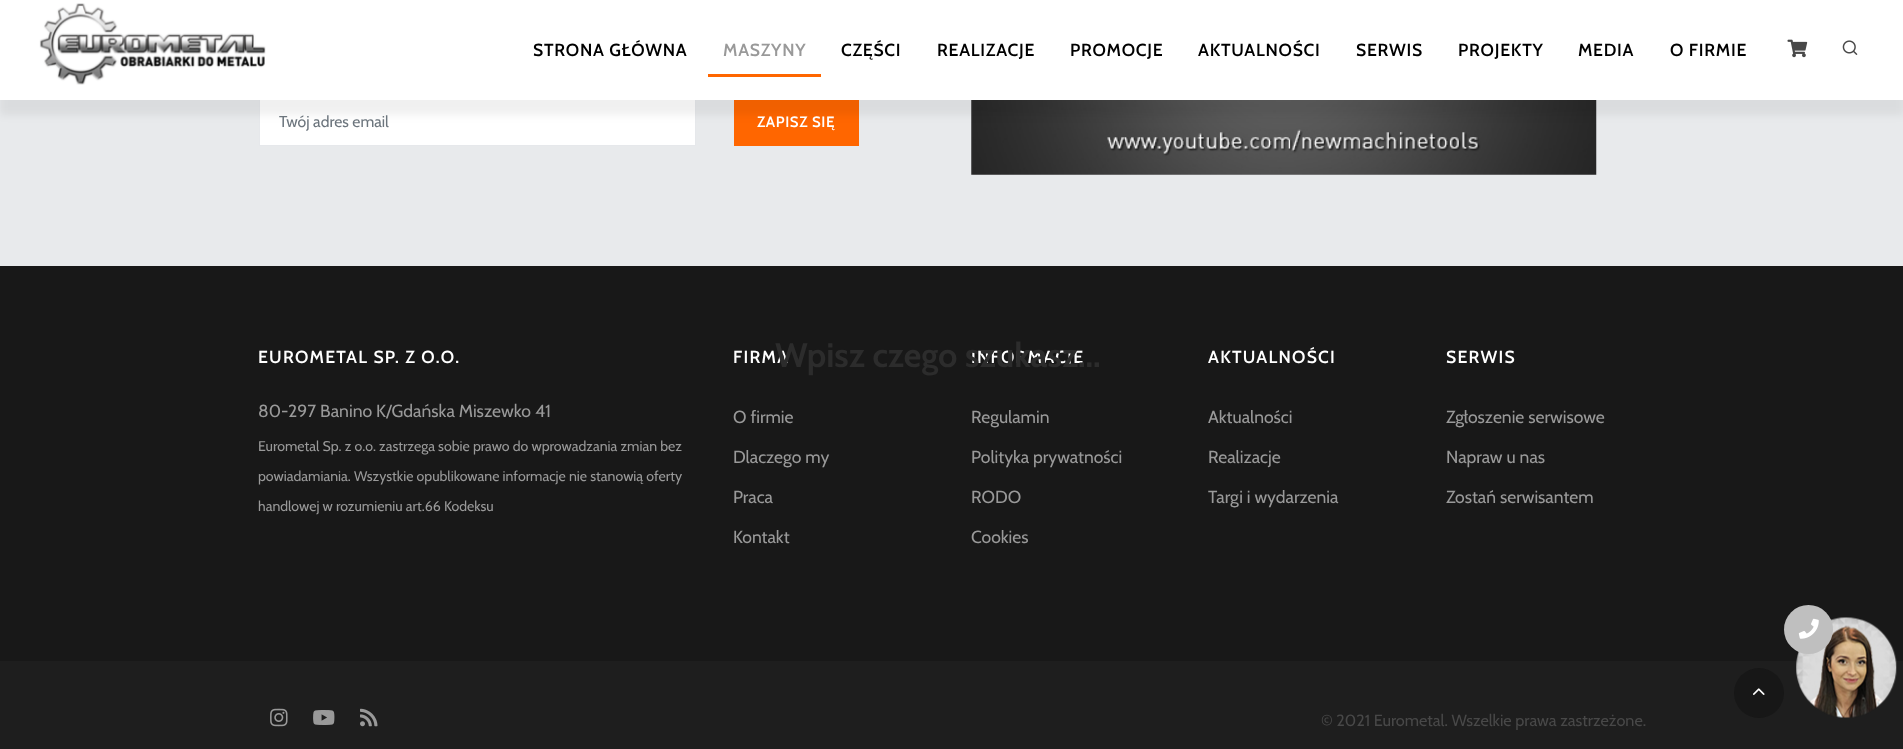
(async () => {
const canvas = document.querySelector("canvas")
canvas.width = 1903
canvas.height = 749
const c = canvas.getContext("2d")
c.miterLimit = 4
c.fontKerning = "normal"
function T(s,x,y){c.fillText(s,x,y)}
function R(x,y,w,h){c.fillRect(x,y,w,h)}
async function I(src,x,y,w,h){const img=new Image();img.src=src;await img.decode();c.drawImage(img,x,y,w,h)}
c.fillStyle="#181818"
R(0,0,1903,749)
c.fillStyle="#e8eaec"
R(0,100,1903,166)
c.fillStyle="#fff"
R(260,100,435,45)
c.strokeStyle="#e6e8eb"
c.strokeRect(259.5,96.5,436,49)
c.fillStyle="#f60"
R(734,100,125,46)
await I("4.png",971,100,626,75)
c.fillStyle="#0000000f"
c.filter="blur(4px)"
c.beginPath()
c.rect(0,15,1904,100)
c.fill()
c.filter="none"
c.fillStyle="#fff"
R(0,0,1903,100)
await I("1.png",39,3,227,82)
c.letterSpacing="0.75px"
c.font="600 17.5px Cabin"
c.fillStyle="#000"
T("STRONA GŁÓWNA",533,56)
c.fillStyle="#999"
T("MASZYNY",723,56)
c.fillStyle="#f60"
R(708,74,113,3)
c.fillStyle="#000"
T("CZĘŚCI",841,56)
T("REALIZACJE",937,56)
T("PROMOCJE",1070,56)
T("AKTUALNOŚCI",1198,56)
T("SERWIS",1356,56)
T("PROJEKTY",1458,56)
T("MEDIA",1578,56)
T("O FIRMIE",1670,56)
await I("2.png",1787,39,21,19)
await I("3.png",1842,40,16,15)
c.letterSpacing="1.25px"
c.fillStyle="#fff"
T("FIRMA",733,363)
T("INFORMACJE",971,363)
c.letterSpacing="0px"
c.font="bold 34px Cabin"
c.fillStyle="#2c2c2c"
T("Wpisz czego szukasz...",775,367)
c.font="15.75px Cabin"
c.fillStyle="#6c757d"
T("Twój adres email",279,127)
c.letterSpacing="0.6px"
c.font="600 15px Cabin"
c.fillStyle="#fff"
T("ZAPISZ SIĘ",757,127)
c.letterSpacing="1.25px"
c.font="600 17.5px Cabin"
T("EUROMETAL SP. Z O.O.",258,363)
c.letterSpacing="0px"
c.font="17.6px Cabin"
c.fillStyle="#999"
T("80-297 Banino K/Gdańska Miszewko 41",258,417)
c.font="14.1px Cabin"
T("Eurometal Sp. z o.o. zastrzega sobie prawo do wprowadzania zmian bez",258,451)
T("powiadamiania. Wszystkie opublikowane informacje nie stanowią oferty",258,481)
T("handlowej w rozumieniu art.66 Kodeksu",258,511)
c.font="17.5px Cabin"
T("O firmie",733,423)
T("Dlaczego my",733,463)
T("Praca",733,503)
T("Kontakt",733,543)
T("Regulamin",971,423)
T("Polityka prywatności",971,463)
T("RODO",971,503)
T("Cookies",971,543)
c.letterSpacing="1.25px"
c.font="600 17.5px Cabin"
c.fillStyle="#fff"
T("AKTUALNOŚCI",1208,363)
c.letterSpacing="0px"
c.font="17.5px Cabin"
c.fillStyle="#999"
T("Aktualności",1208,423)
T("Realizacje",1208,463)
T("Targi i wydarzenia",1208,503)
c.letterSpacing="1.25px"
c.font="600 17.5px Cabin"
c.fillStyle="#fff"
T("SERWIS",1446,363)
c.letterSpacing="0px"
c.font="17.5px Cabin"
c.fillStyle="#999"
T("Zgłoszenie serwisowe",1446,423)
T("Napraw u nas",1446,463)
T("Zostań serwisantem",1446,503)
c.fillStyle="#1e1e1e"
R(0,661,1903,88)
await I("5.png",270,708,18,19)
await I("6.png",313,710,22,15)
await I("7.png",360,708,18,19)
c.font="16.25px Cabin"
c.fillStyle="#484848"
T("© 2021 Eurometal. Wszelkie prawa zastrzeżone.",1321,726)
c.fillStyle="#171717"
c.beginPath()
c.arc(1759,693,25,0,7)
c.fill()
await I("8.png",1753,688,12,7)
await I("10.png",1796,617,101,101)
c.fillStyle="#bfbfbf"
c.beginPath()
c.arc(1808.5,629.5,24.5,0,7)
c.fill()
await I("9.png",1798,618,21,21)
})()
